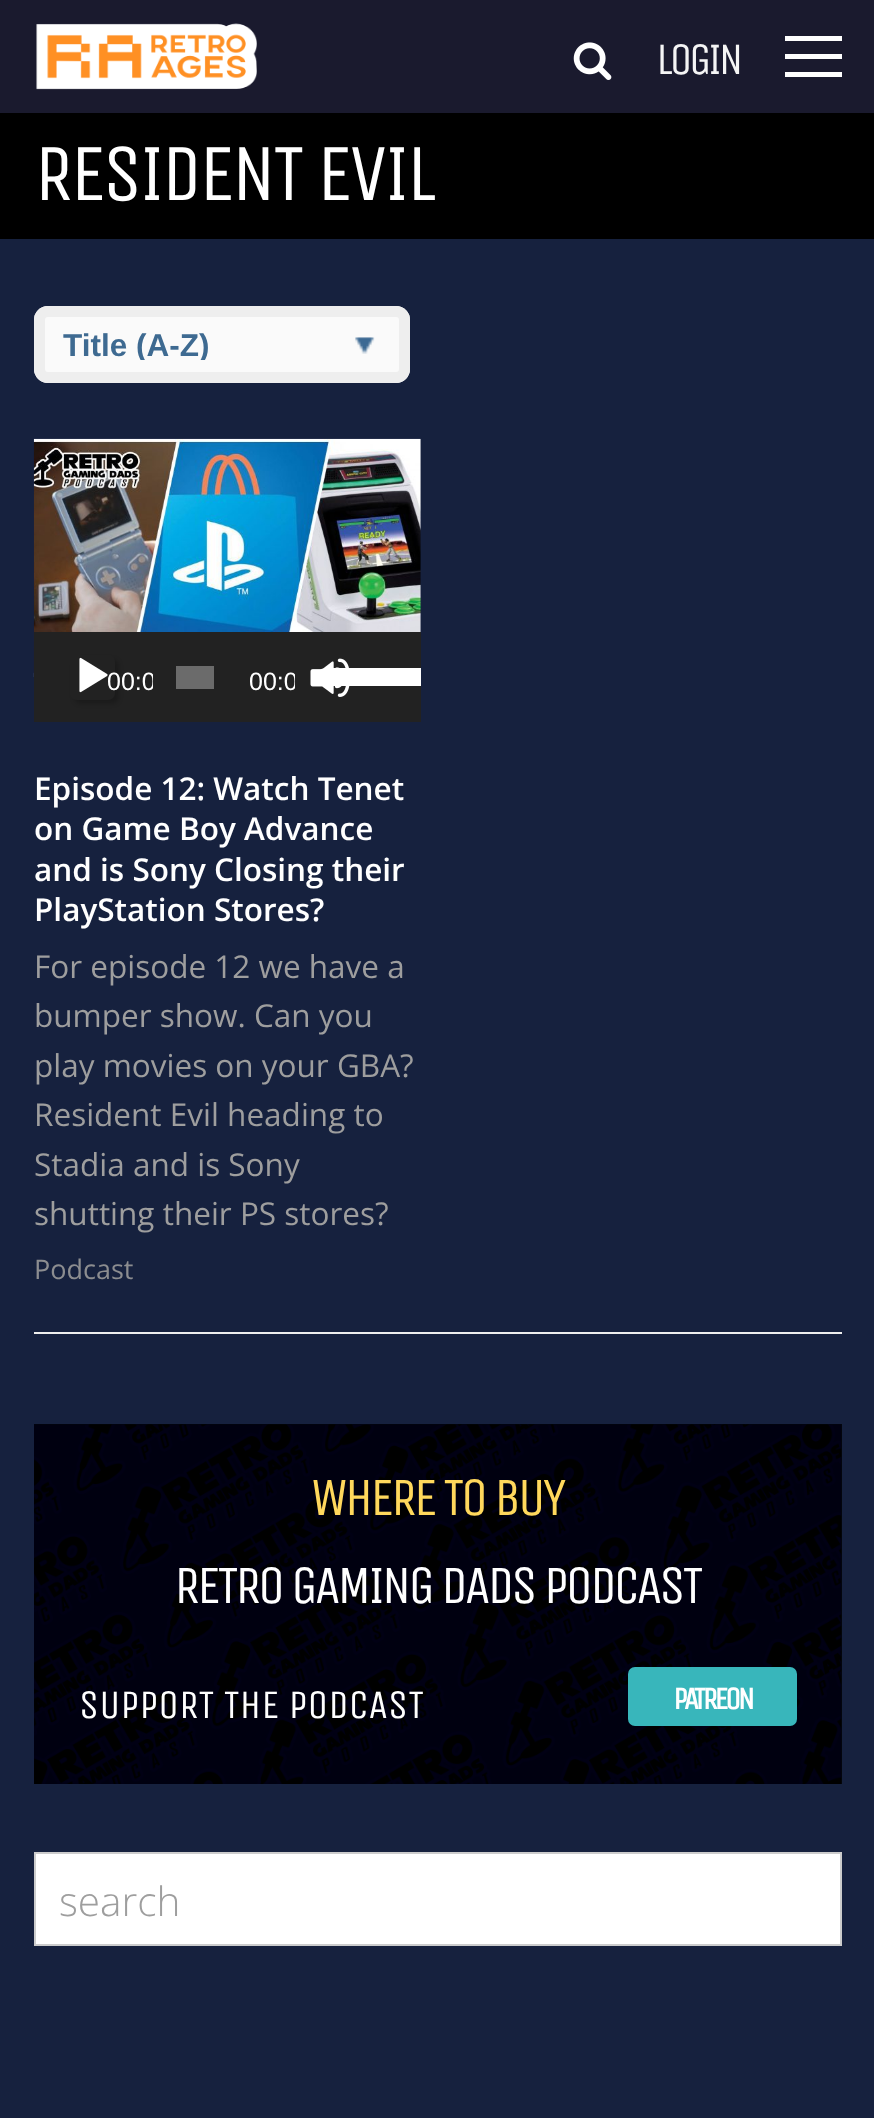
(async () => {
const canvas = document.querySelector("canvas")
canvas.width = 874
canvas.height = 2118
const c = canvas.getContext("2d")
c.miterLimit = 4
c.fontKerning = "normal"
function T(s,x,y){c.fillText(s,x,y)}
function R(x,y,w,h){c.fillRect(x,y,w,h)}
function Q(x,y,w,h,r){c.beginPath();c.roundRect(x,y,w,h,r);c.fill()}
async function I(src,x,y,w,h){const img=new Image();img.src=src;await img.decode();c.drawImage(img,x,y,w,h)}
let path
c.fillStyle="#1a1a2e"
R(0,0,874,2118)
await I("1.png",36,23,221,67)
await I("2.png",573,42,39,38)
c.letterSpacing="-3.4px"
c.font="45px Unica One"
c.fillStyle="#f5f5f5"
T("LOGIN",656,74)
c.fillStyle="#fff"
R(785,54,57,5)
R(785,36,57,5)
R(785,72,57,5)
c.fillStyle="#000"
R(0,113,874,126)
c.font="81px Unica One"
c.fillStyle="#fff"
T("RESIDENT EVIL",34,200)
c.fillStyle="#16213e"
R(0,239,874,1879)
c.fillStyle="#04070c"
R(34,1424,808,360)
c.fillStyle="#fafafa"
Q(34,306,376,77,14)
await I("3.png",355,337,20,17)
c.beginPath()
c.roundRect(39.5,311.5,365,66,8.5)
c.strokeStyle="#eee"
c.lineWidth=11
c.stroke()
c.save()
c.beginPath()
c.rect(63,329,245,31)
c.clip()
c.letterSpacing="0px"
c.font="bold 31.5px Liberation Sans"
c.fillStyle="#3e6a91"
T("Title (A-Z)",63,356)
c.restore()
await I("4.png",33,438,388,239)
c.fillStyle="#222"
R(34,632,387,90)
c.save()
path = new Path2D("M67 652h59v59h-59zm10 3h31c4 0 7 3 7 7v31c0 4-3 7-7 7h-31c-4 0-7-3-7-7v-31c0-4 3-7 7-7z")
c.clip(path,"evenodd")
c.fillStyle="#00000033"
c.filter="blur(2px)"
c.beginPath()
c.roundRect(74,659,45,45,7)
c.fill()
c.filter="none"
c.restore()
await I("5.png",79,657,29,36)
c.save()
c.beginPath()
c.rect(95,632,58,90)
c.clip()
c.letterSpacing="0px"
c.font="25px Liberation Sans"
c.fillStyle="#fff"
T("00:0",107,690)
c.restore()
c.fillStyle="#6b6b6b"
R(176,666,38,23)
c.save()
c.beginPath()
c.rect(236,632,59,90)
c.clip()
c.letterSpacing="0px"
c.font="25px Liberation Sans"
c.fillStyle="#fff"
T("00:0",249,690)
c.restore()
await I("6.png",310,658,40,39)
c.fillStyle="#fff"
R(333,668,88,18)
c.letterSpacing="0px"
c.font="600 31.5px Open Sans"
T("Episode 12: Watch Tenet",34,800)
T("on Game Boy Advance",34,840)
T("and is Sony Closing their",34,881)
T("PlayStation Stores?",34,921)
c.font="31.5px Open Sans"
c.fillStyle="#9e9e9e"
T("For episode 12 we have a",34,978)
T("bumper show. Can you",34,1027)
T("play movies on your GBA?",34,1077)
T("Resident Evil heading to",34,1126)
T("Stadia and is Sony",34,1176)
T("shutting their PS stores?",34,1225)
c.font="27px Open Sans"
c.fillStyle="#8c8d90"
T("Podcast",34,1279)
c.fillStyle="#eee"
R(34,1332,808,2)
await I("7.png",34,1424,808,360)
c.letterSpacing="-3.4px"
c.font="54px Unica One"
c.fillStyle="#ffd85c"
T("WHERE TO BUY",311,1515)
c.fillStyle="#fff"
T("RETRO GAMING DADS PODCAST",174,1603)
c.letterSpacing="0px"
c.font="40.5px Unica One"
T("SUPPORT THE PODCAST",79,1718)
c.fillStyle="#38b6bb"
Q(628,1667,169,59,7)
c.letterSpacing="-3.4px"
c.font="bold 31.5px Unica One"
c.fillStyle="#fff"
T("PATREON",673,1709)
c.beginPath()
c.rect(35,1853,806,92)
c.fill()
c.strokeStyle="#ccc"
c.lineWidth=2
c.stroke()
c.letterSpacing="0px"
c.font="300 40.5px Open Sans"
c.fillStyle="#9e9e9e"
T("search",59,1916)
})()
